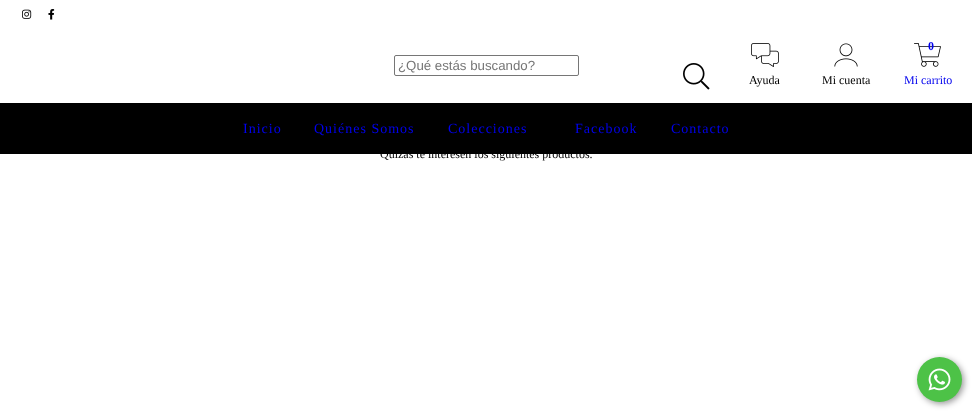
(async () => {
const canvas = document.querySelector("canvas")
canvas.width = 972
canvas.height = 412
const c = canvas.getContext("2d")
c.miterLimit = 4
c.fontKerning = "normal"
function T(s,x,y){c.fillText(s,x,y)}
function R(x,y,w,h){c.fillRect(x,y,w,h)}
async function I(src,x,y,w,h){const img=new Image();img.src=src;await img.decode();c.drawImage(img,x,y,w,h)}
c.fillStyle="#fff"
R(0,0,972,412)
await I("1.png",22,9,10,10)
await I("2.png",48,9,7,11)
c.beginPath()
c.roundRect(394.5,55.5,184,20,1.5)
c.strokeStyle="#767676"
c.stroke()
c.font="13.25px Liberation Sans"
c.fillStyle="#757575"
T("¿Qué estás buscando?",398,70)
await I("3.png",683,63,27,27)
await I("4.png",751,43,28,24)
c.font="12px Liberation Serif"
c.fillStyle="#000"
T("Ayuda",749,84)
await I("5.png",834,43,24,24)
T("Mi cuenta",822,84)
await I("6.png",914,43,27,24)
c.font="bold 12px Liberation Serif"
c.fillStyle="#00e"
T("0",928,50)
c.font="12px Liberation Serif"
T("Mi carrito",904,84)
c.fillStyle="#000"
R(0,103,972,51)
c.letterSpacing="1px"
c.font="14px Liberation Serif"
c.fillStyle="#00e"
T("Inicio",243,133)
T("Quiénes Somos",314,133)
T("Colecciones",448,133)
T("Facebook",575,133)
T("Contacto",671,133)
c.letterSpacing="0px"
c.font="12px Liberation Serif"
c.fillStyle="#000"
T("Quizás te interesen los siguientes productos.",380,158)
c.fillStyle="#00000066"
c.filter="blur(3px)"
c.beginPath()
c.roundRect(919,359,45,45,22.5)
c.fill()
c.filter="none"
c.fillStyle="#4dc247"
c.beginPath()
c.arc(939.5,379.5,22.5,0,7)
c.fill()
await I("7.png",928,368,23,23)
})()
